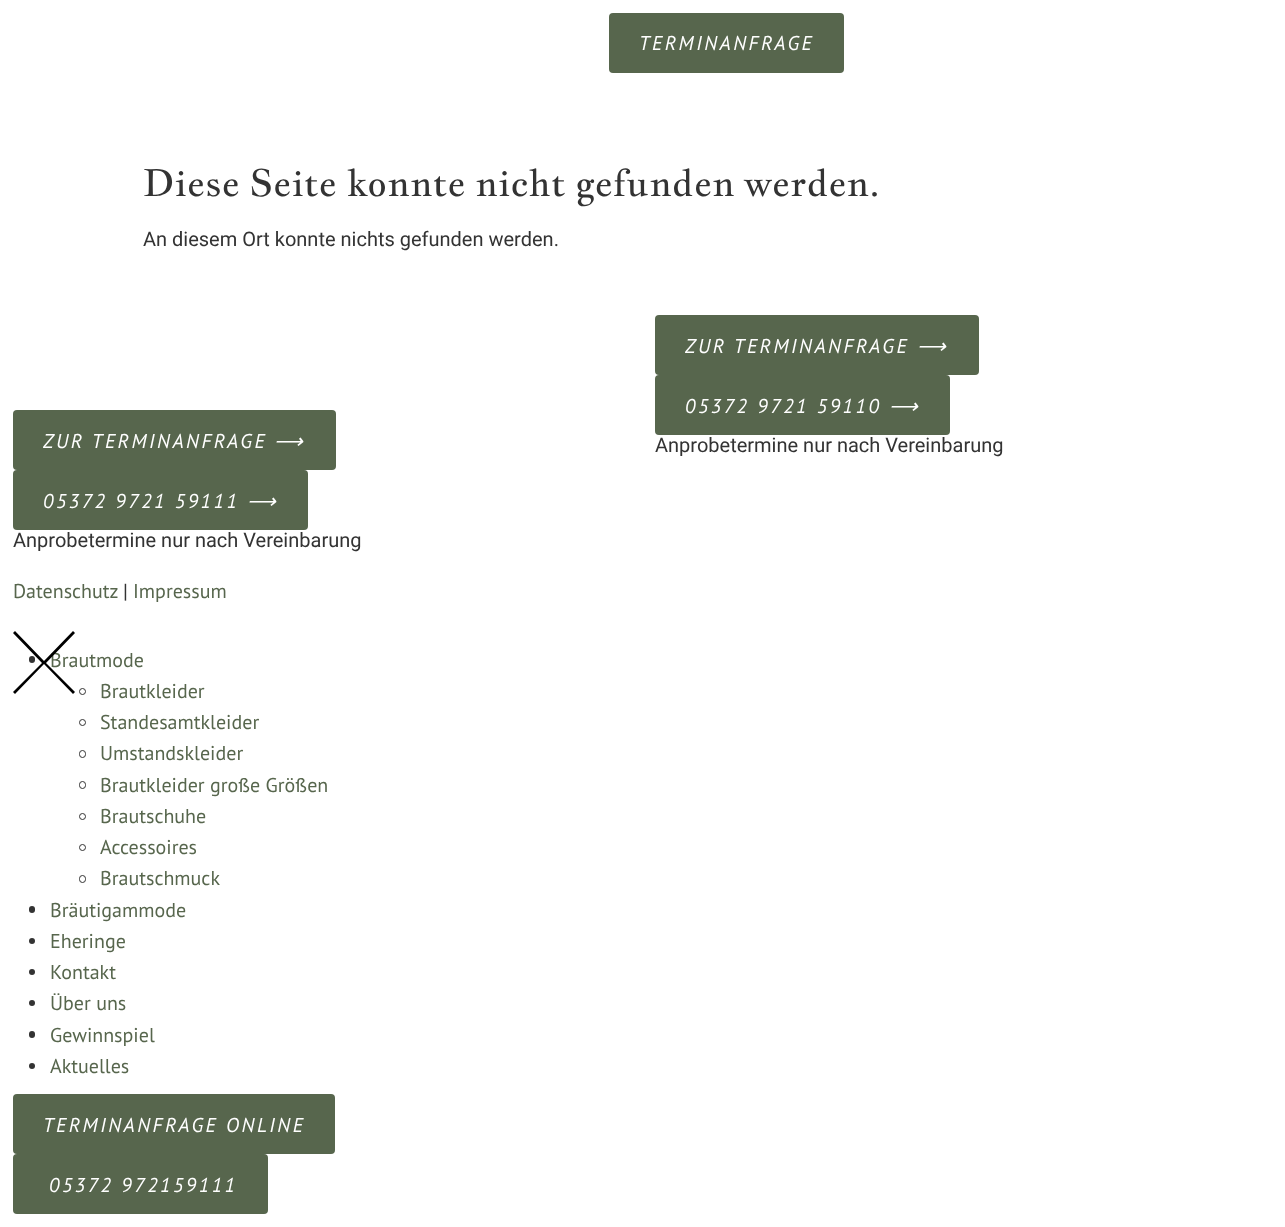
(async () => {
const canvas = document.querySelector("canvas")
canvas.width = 1285
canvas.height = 1227
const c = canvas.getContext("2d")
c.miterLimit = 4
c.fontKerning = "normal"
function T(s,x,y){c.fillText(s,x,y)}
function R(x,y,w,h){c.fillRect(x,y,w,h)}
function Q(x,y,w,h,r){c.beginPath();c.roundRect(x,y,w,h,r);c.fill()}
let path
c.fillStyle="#fff"
R(0,0,1285,1227)
c.fillStyle="#57664d"
Q(609,13,235,60,4)
c.letterSpacing="2.5px"
c.font="italic 20px PT Sans"
c.fillStyle="#fff"
T("TERMINANFRAGE",639,50)
c.letterSpacing="0px"
c.font="37.5px Jacques Francois"
c.fillStyle="#333"
T("Diese Seite konnte nicht gefunden werden.",143,196)
c.font="20px Roboto"
T("An diesem Ort konnte nichts gefunden werden.",143,246)
c.fillStyle="#57664d"
Q(655,315,324,60,4)
c.letterSpacing="2.5px"
c.font="italic 20px PT Sans"
c.fillStyle="#fff"
T("ZUR TERMINANFRAGE",685,353)
c.font="italic 20px DejaVu Sans"
T("⟶",917,353)
c.fillStyle="#57664d"
Q(655,375,295,60,4)
c.font="italic 20px PT Sans"
c.fillStyle="#fff"
T("05372 9721 59110",685,413)
c.font="italic 20px DejaVu Sans"
T("⟶",889,413)
c.letterSpacing="0px"
c.font="20px Roboto"
c.fillStyle="#333"
T("Anprobetermine nur nach Vereinbarung",655,452)
c.fillStyle="#57664d"
Q(13,410,323,60,4)
c.letterSpacing="2.5px"
c.font="italic 20px PT Sans"
c.fillStyle="#fff"
T("ZUR TERMINANFRAGE",43,448)
c.font="italic 20px DejaVu Sans"
T("⟶",274,448)
c.fillStyle="#57664d"
Q(13,470,295,60,4)
c.font="italic 20px PT Sans"
c.fillStyle="#fff"
T("05372 9721 59111",43,508)
c.font="italic 20px DejaVu Sans"
T("⟶",247,508)
c.letterSpacing="0px"
c.font="20px Roboto"
c.fillStyle="#333"
T("Anprobetermine nur nach Vereinbarung",13,547)
c.font="20px PT Sans"
c.fillStyle="#57664d"
T("Datenschutz",13,598)
c.font="20px Roboto"
c.fillStyle="#333"
T("|",123,598)
c.font="20px PT Sans"
c.fillStyle="#57664d"
T("Impressum",133,598)
c.fillStyle="#333"
Q(29,656,6,7,3)
c.fillStyle="#57664d"
T("Brautmode",50,667)
c.fillStyle="#000"
path = new Path2D("M75 633l-2-2l-29 30l-29-30l-2 2l29 30l-29 29l2 2l29-30l29 30l2-2l-29-29z")
c.fill(path)
c.beginPath()
c.arc(82.5,691.5,3,0,7)
c.strokeStyle="#333"
c.stroke()
c.fillStyle="#57664d"
T("Brautkleider",100,698)
c.beginPath()
c.arc(82.5,722.5,3,0,7)
c.stroke()
T("Standesamtkleider",100,729)
c.beginPath()
c.roundRect(79.5,750.5,6,7,3)
c.stroke()
T("Umstandskleider",100,760)
c.beginPath()
c.roundRect(79.5,781.5,6,7,3)
c.stroke()
T("Brautkleider große Größen",100,792)
c.beginPath()
c.arc(82.5,816.5,3,0,7)
c.stroke()
T("Brautschuhe",100,823)
c.beginPath()
c.arc(82.5,847.5,3,0,7)
c.stroke()
T("Accessoires",100,854)
c.beginPath()
c.roundRect(79.5,875.5,6,7,3)
c.stroke()
T("Brautschmuck",100,885)
c.fillStyle="#333"
Q(29,906,6,7,3)
c.fillStyle="#57664d"
T("Bräutigammode",50,917)
c.fillStyle="#333"
c.beginPath()
c.arc(32,941,3,0,7)
c.fill()
c.fillStyle="#57664d"
T("Eheringe",50,948)
c.fillStyle="#333"
c.beginPath()
c.arc(32,972,3,0,7)
c.fill()
c.fillStyle="#57664d"
T("Kontakt",50,979)
c.fillStyle="#333"
c.beginPath()
c.arc(32,1003,3,0,7)
c.fill()
c.fillStyle="#57664d"
T("Über uns",50,1010)
c.fillStyle="#333"
Q(29,1031,6,7,3)
c.fillStyle="#57664d"
T("Gewinnspiel",50,1042)
c.fillStyle="#333"
c.beginPath()
c.arc(32,1066,3,0,7)
c.fill()
c.fillStyle="#57664d"
T("Aktuelles",50,1073)
Q(13,1094,322,60,4)
c.letterSpacing="2.5px"
c.font="italic 20px PT Sans"
c.fillStyle="#fff"
T("TERMINANFRAGE ONLINE",43,1132)
c.fillStyle="#57664d"
Q(13,1154,255,60,4)
c.fillStyle="#fff"
T("05372 972159111",49,1192)
})()
